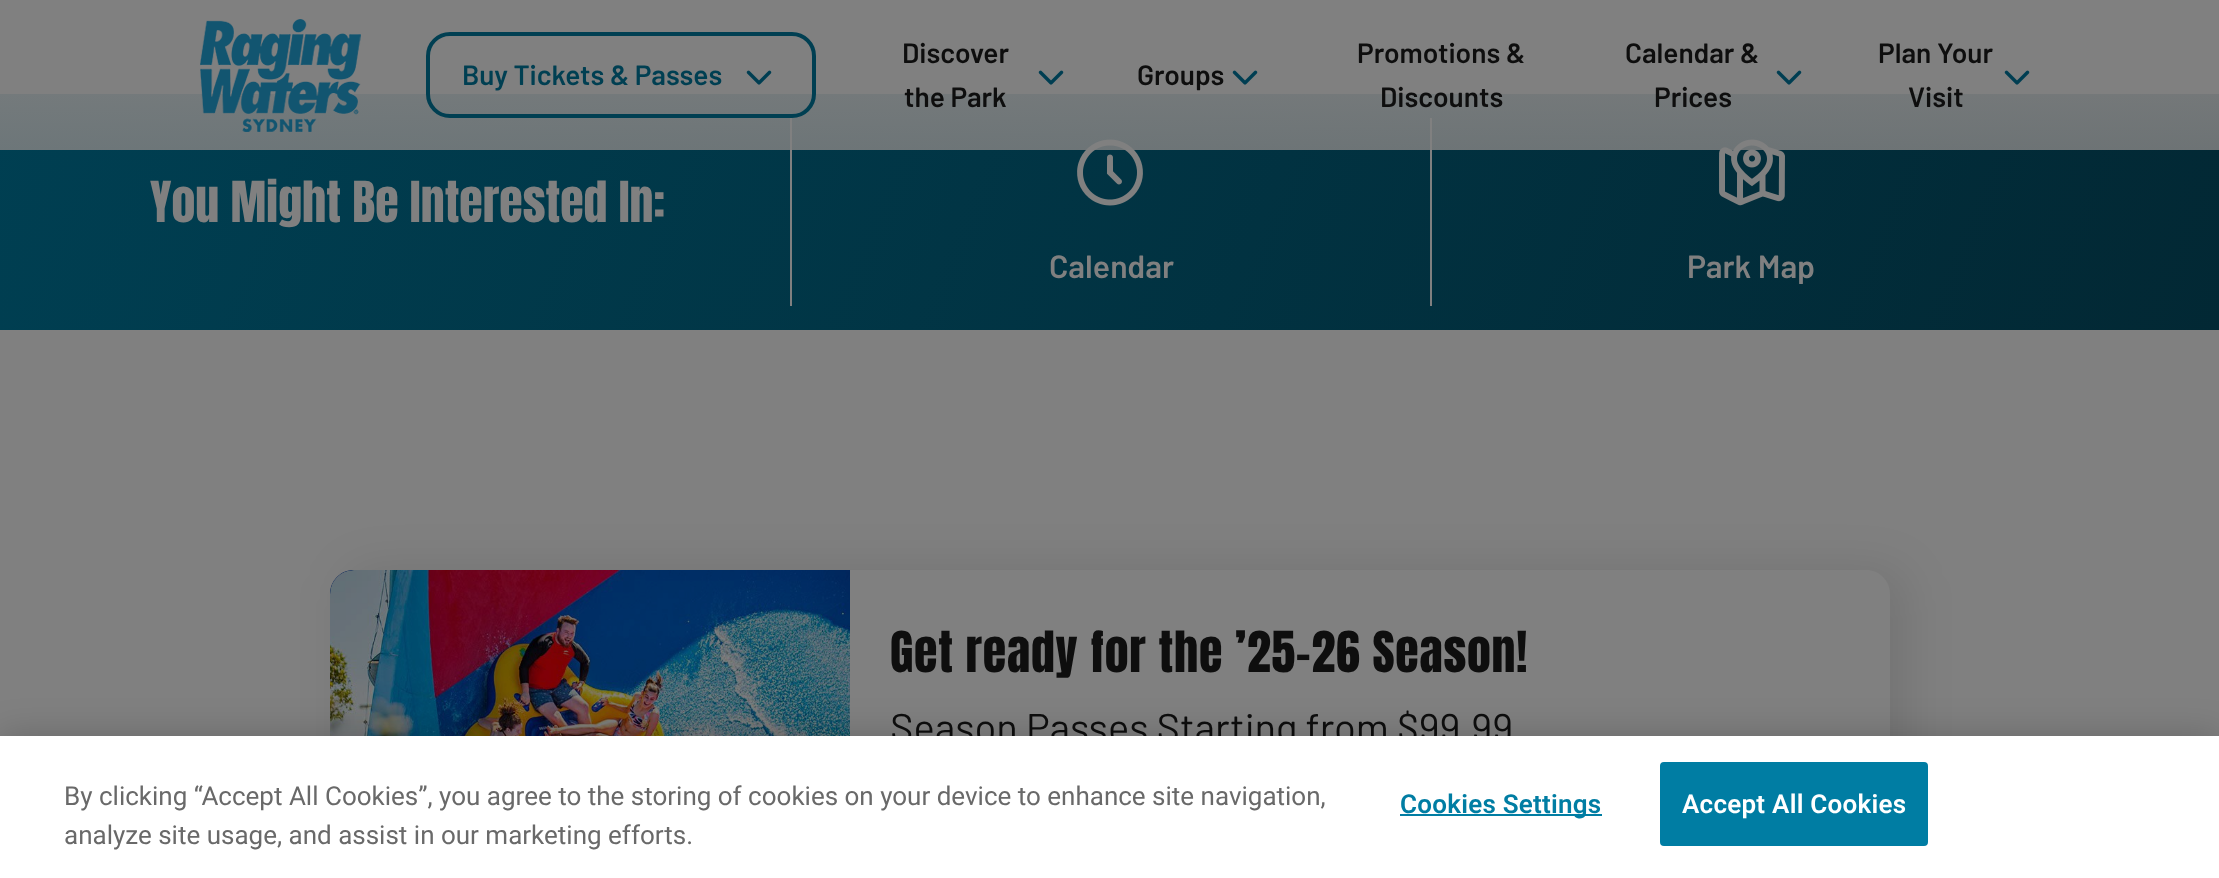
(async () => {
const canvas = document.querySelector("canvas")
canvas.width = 2219
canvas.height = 878
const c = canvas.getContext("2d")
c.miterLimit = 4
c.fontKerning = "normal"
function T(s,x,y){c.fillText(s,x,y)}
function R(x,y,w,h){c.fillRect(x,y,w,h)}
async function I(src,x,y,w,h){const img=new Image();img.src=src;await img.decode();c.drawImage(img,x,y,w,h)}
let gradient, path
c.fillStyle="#808080"
R(0,0,2219,878)
gradient = c.createLinearGradient(119,-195,2101,619)
gradient.addColorStop(0,"#003f52")
gradient.addColorStop(1,"#022834")
c.fillStyle = gradient
R(0,94,2219,236)
c.fillStyle="#808080"
R(790,118,2,188)
await I("3.png",1077,139,66,67)
R(1430,118,2,188)
await I("4.png",1719,139,66,67)
gradient = c.createLinearGradient(1110,0,1110,150)
gradient.addColorStop(0,"#808080")
gradient.addColorStop(1,"#808080d9")
c.fillStyle = gradient
R(0,94,2219,56)
await I("1.png",200,19,161,113)
c.beginPath()
c.roundRect(428,34,386,82,22)
c.strokeStyle="#003f52"
c.lineWidth=4
c.stroke()
c.font="600 28px Barlow"
c.fillStyle="#003f52"
T("Buy Tickets & Passes",462,85)
await I("2.png",746,70,26,15)
c.fillStyle="#0e0e0e"
T("Discover",902,63)
await I("2.png",1038,70,26,15)
T("the Park",904,107)
T("Groups",1137,85)
await I("2.png",1232,70,26,15)
T("Promotions &",1357,63)
T("Discounts",1380,107)
T("Calendar &",1625,63)
await I("2.png",1776,70,26,15)
T("Prices",1654,107)
T("Plan Your",1878,63)
await I("2.png",2004,70,26,15)
T("Visit",1908,107)
c.font="48px Anton"
c.fillStyle="#808080"
T("You Might Be Interested In:",150,222)
c.font="600 32px Barlow"
T("Calendar",1049,278)
T("Park Map",1687,278)
c.fillStyle="#0000001a"
c.filter="blur(24px)"
c.beginPath()
c.roundRect(346,570,1560,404,24)
c.fill()
c.filter="none"
c.fillStyle="#06235a"
path = new Path2D("M354 570h496v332h-496c-13.5 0-24-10.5-24-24v-284c0-13.5 10.5-24 24-24z")
c.fill(path)
await I("5.png",330,570,520,166)
c.fillStyle="#808080"
path = new Path2D("M850 570h1016c13.5 0 24 10.5 24 24v284c0 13.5-10.5 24-24 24h-1016z")
c.fill(path)
c.letterSpacing="0.75px"
c.font="48px Anton"
c.fillStyle="#0e0e0e"
T("Get ready for the ’25-26 Season!",890,672)
c.letterSpacing="0px"
c.font="40px Barlow"
T("Season Passes Starting from $99.99",890,742)
c.fillStyle="#00000033"
c.filter="blur(18px)"
c.beginPath()
c.rect(0,736,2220,142)
c.fill()
c.filter="none"
c.fillStyle="#fff"
R(0,736,2219,142)
c.font="26px Roboto"
c.fillStyle="#696969"
T("By clicking “Accept All Cookies”, you agree to the storing of cookies on your device to enhance site navigation,",64,805)
T("analyze site usage, and assist in our marketing efforts.",64,844)
c.fillStyle="#007da3"
R(1400,814,202,2)
c.letterSpacing="0.25px"
c.font="600 26px Roboto"
T("Cookies Settings",1400,813)
c.beginPath()
c.roundRect(1661,763,266,82,3)
c.fill()
c.strokeStyle="#007da3"
c.lineWidth=2
c.stroke()
c.fillStyle="#fff"
T("Accept All Cookies",1682,813)
})()
